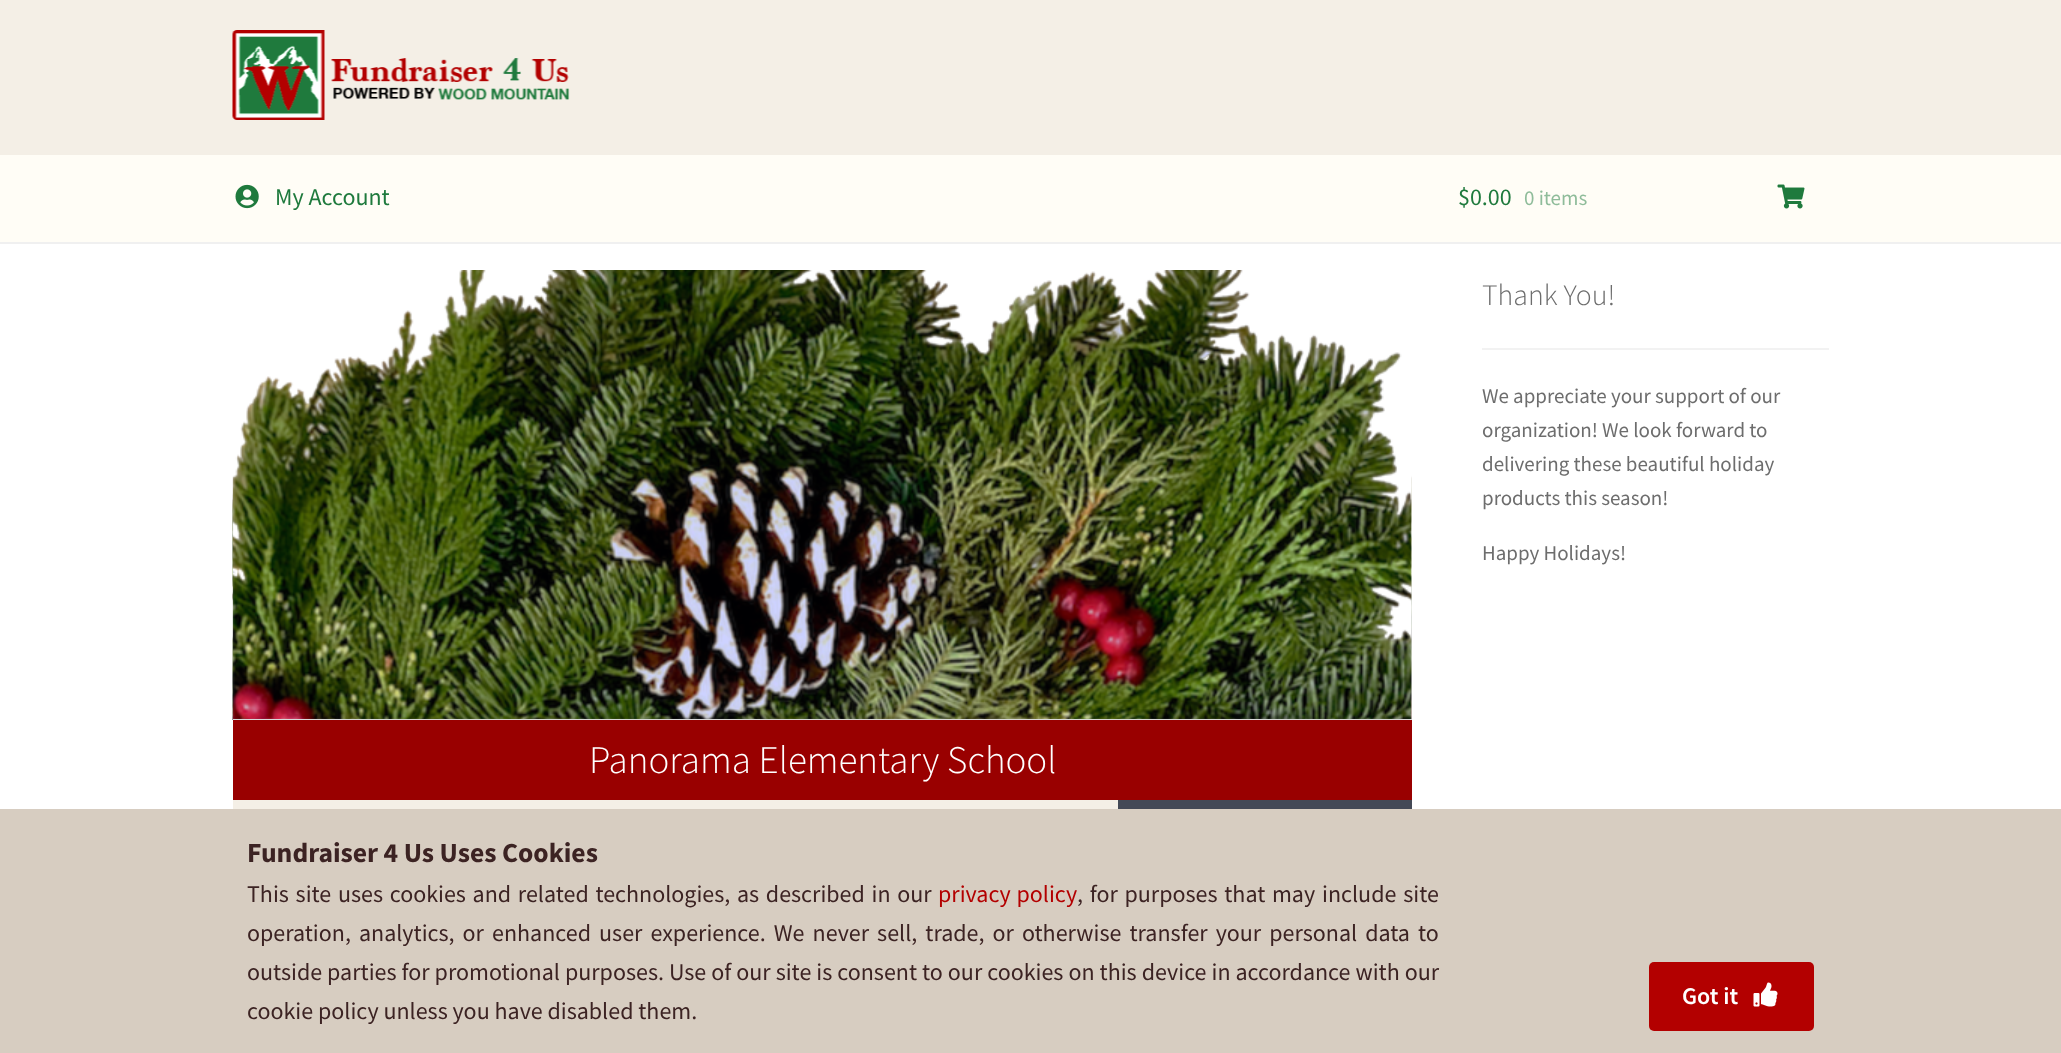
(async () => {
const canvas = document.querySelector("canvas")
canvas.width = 2061
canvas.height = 1053
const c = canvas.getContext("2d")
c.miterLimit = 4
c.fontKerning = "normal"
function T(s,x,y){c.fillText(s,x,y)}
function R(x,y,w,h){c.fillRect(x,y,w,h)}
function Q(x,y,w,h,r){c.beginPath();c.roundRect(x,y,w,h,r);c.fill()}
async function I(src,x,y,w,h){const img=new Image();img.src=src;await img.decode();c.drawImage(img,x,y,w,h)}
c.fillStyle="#fff"
R(0,0,2061,1053)
c.fillStyle="#f4efe6"
R(0,0,2061,155)
c.fillStyle="#f0f0f0"
R(0,242,2061,2)
await I("1.png",232,30,338,90)
c.fillStyle="#fffdf6"
R(0,155,2061,87)
await I("2.png",235,184,24,25)
c.font="24px Source Sans Pro"
c.fillStyle="#1f7a3d"
T("My Account",275,205)
T("$0.00",1458,205)
c.font="21px Source Sans Pro"
c.fillStyle="#8fbc9a"
T("0 items",1524,205)
await I("3.png",1777,184,28,25)
c.fillStyle="#f2f2f2"
R(1482,348,347,2)
c.font="300 29.75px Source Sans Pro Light"
c.fillStyle="#6d6d6d"
T("Thank You!",1482,305)
c.font="21px Source Sans Pro"
T("We appreciate your support of our",1482,403)
T("organization! We look forward to",1482,437)
T("delivering these beautiful holiday",1482,471)
T("products this season!",1482,505)
T("Happy Holidays!",1482,560)
await I("4.png",232,270,1180,450)
c.fillStyle="#d9d9d9"
R(233,719,1179,1)
c.fillStyle="#900"
R(233,720,1179,80)
c.font="300 39px Source Sans Pro Light"
c.fillStyle="#fff"
T("Panorama Elementary School",589,773)
c.fillStyle="#f4efe6"
R(233,800,885,9)
c.fillStyle="#444956"
R(1118,800,294,9)
c.fillStyle="#d7cdc1"
R(0,809,2061,244)
c.font="bold 27.6px Source Sans Pro"
c.fillStyle="#3c2323"
T("Fundraiser 4 Us Uses Cookies",247,862)
c.wordSpacing="1.9px"
c.font="24px Source Sans Pro"
T("This site uses cookies and related technologies, as described in our",247,902)
c.wordSpacing="1px"
c.fillStyle="#b30000"
T("privacy policy",938,902)
c.wordSpacing="1.9px"
c.fillStyle="#3c2323"
T(", for purposes that may",1077,902)
c.wordSpacing="2px"
T("include site",1322,902)
c.wordSpacing="3.25px"
T("operation, analytics, or enhanced user experience. We never sell, trade, or otherwise transfer your personal data to",247,941)
c.wordSpacing="0.2px"
T("outside parties for promotional purposes. Use of our site is consent to our cookies on this device in accordance with our",247,980)
c.wordSpacing="0px"
T("cookie policy unless you have disabled them.",247,1019)
c.fillStyle="#b30000"
Q(1649,962,165,69,5)
c.font="600 24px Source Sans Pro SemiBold"
c.fillStyle="#fff"
T("Got it",1682,1004)
await I("5.png",1753,982,25,25)
})()
